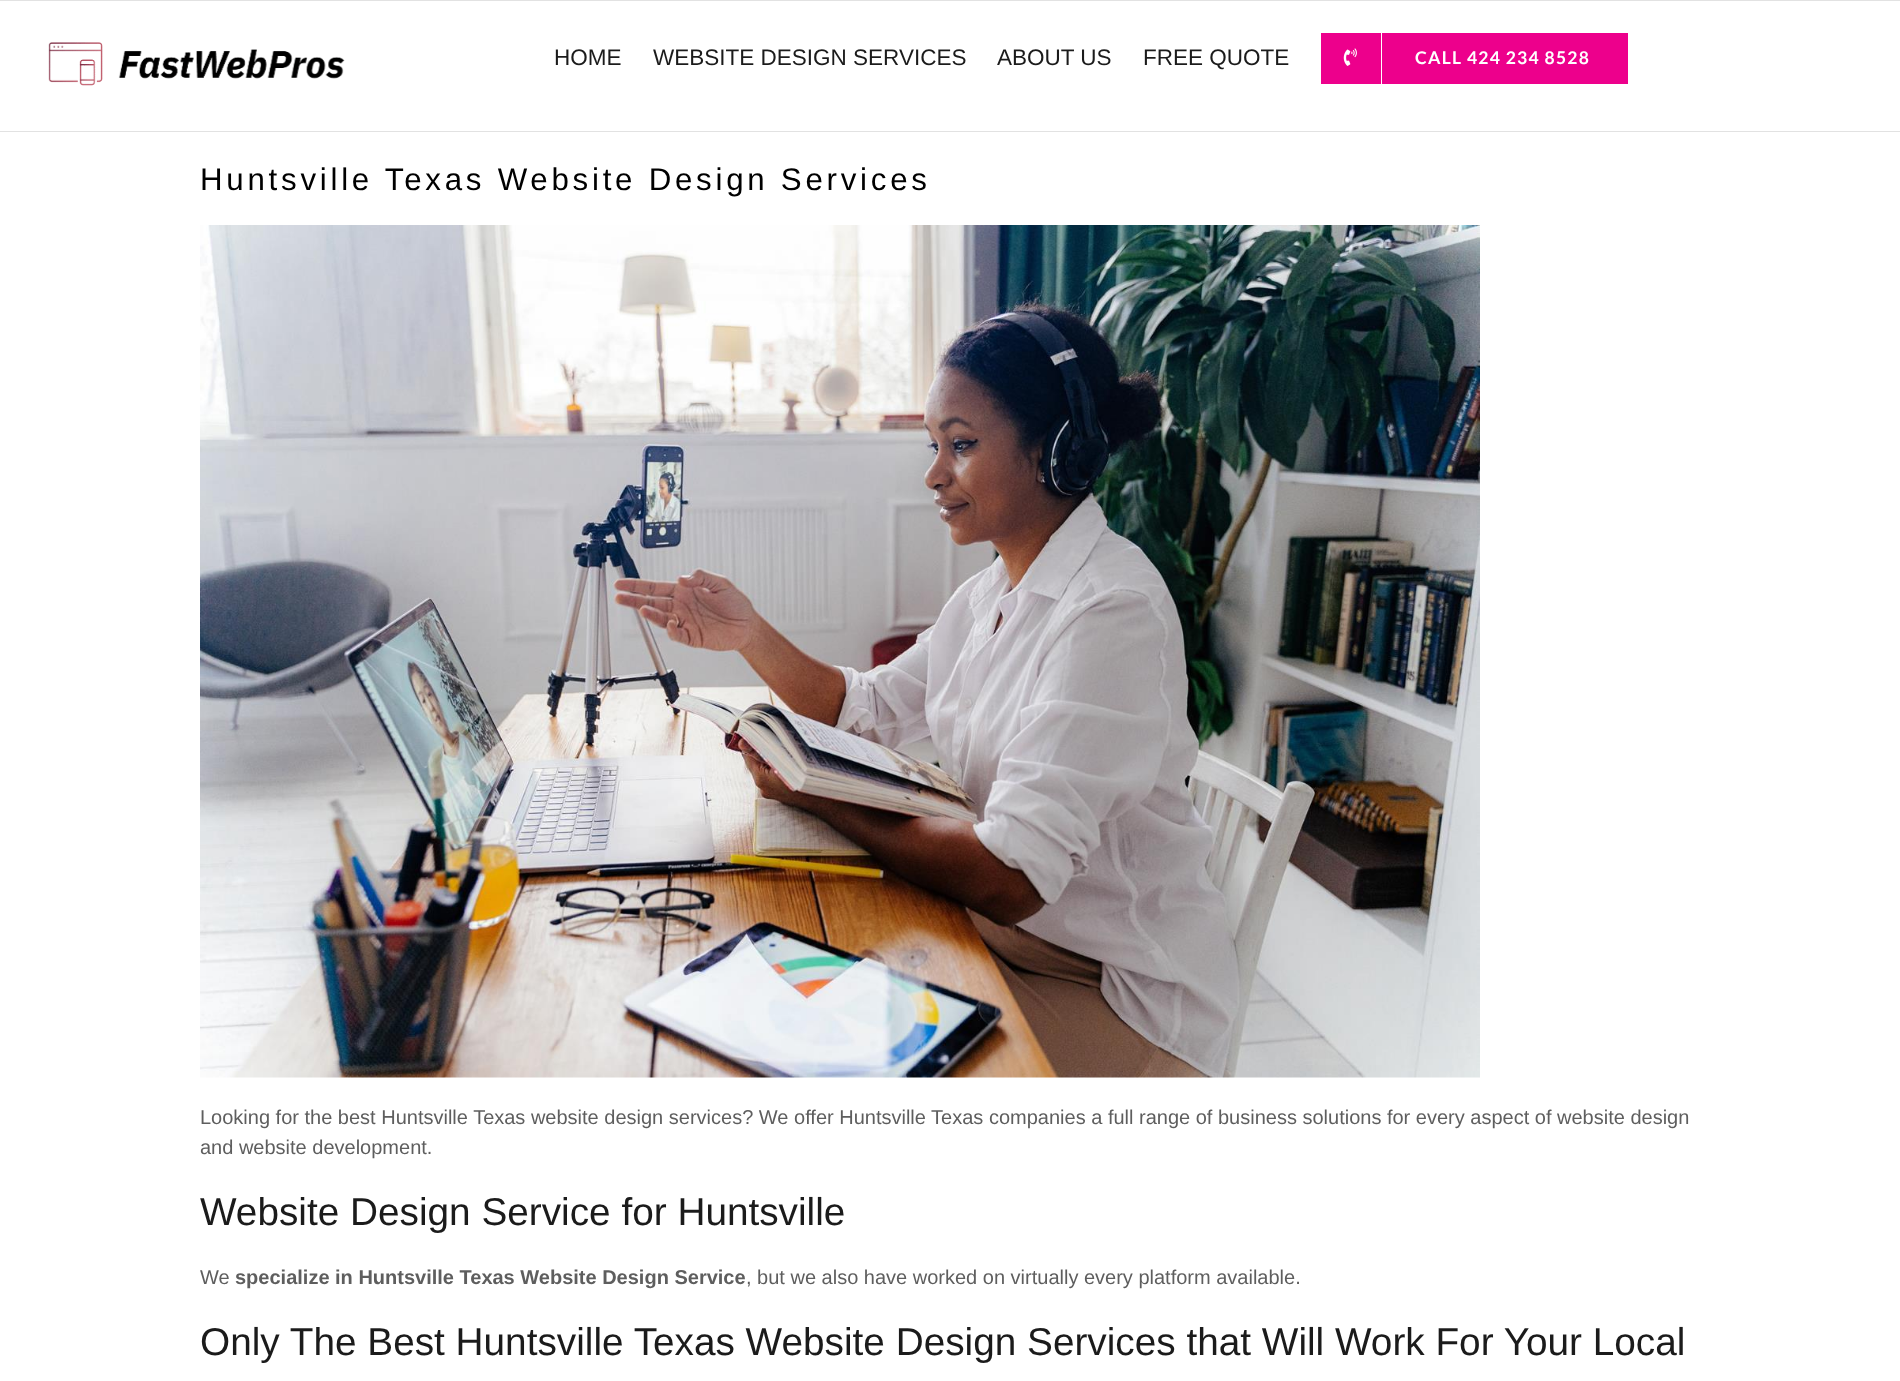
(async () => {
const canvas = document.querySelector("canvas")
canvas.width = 1900
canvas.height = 1381
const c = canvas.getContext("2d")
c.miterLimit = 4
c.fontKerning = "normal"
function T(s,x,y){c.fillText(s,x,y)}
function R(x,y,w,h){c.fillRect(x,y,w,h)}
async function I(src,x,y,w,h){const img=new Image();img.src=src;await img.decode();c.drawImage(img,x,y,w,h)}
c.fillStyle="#fff"
R(0,0,1900,1381)
c.fillStyle="#e2e2e2"
R(0,0,1900,1)
R(0,131,1900,1)
await I("1.png",48,42,297,44)
c.font="22.5px Liberation Sans"
c.fillStyle="#1b1b1b"
T("HOME",554,65)
T("WEBSITE DESIGN SERVICES",653,65)
T("ABOUT US",997,65)
T("FREE QUOTE",1143,65)
c.fillStyle="#ed008c"
R(1321,33,307,51)
c.fillStyle="#fff"
R(1381,33,1,51)
await I("2.png",1343,48,14,18)
c.letterSpacing="1.25px"
c.font="bold 17.5px Lato"
T("CALL 424 234 8528",1415,64)
c.letterSpacing="3.75px"
c.font="31.25px Liberation Sans"
c.fillStyle="#000"
T("Huntsville Texas Website Design Services",200,190)
await I("3.png",200,225,1280,853)
c.letterSpacing="0px"
c.font="20px Liberation Sans"
c.fillStyle="#5e5e5e"
T("Looking for the best Huntsville Texas website design services? We offer Huntsville Texas companies a full range of business solutions for every aspect of website design",200,1124)
T("and website development.",200,1154)
c.font="38.75px Liberation Sans"
c.fillStyle="#1b1b1b"
T("Website Design Service for Huntsville",200,1225)
c.font="20px Liberation Sans"
c.fillStyle="#5e5e5e"
T("We",200,1284)
c.font="bold 20px Liberation Sans"
T("specialize in Huntsville Texas Website Design Service",235,1284)
c.font="20px Liberation Sans"
T(", but we also have worked on virtually every platform available.",746,1284)
c.font="38.75px Liberation Sans"
c.fillStyle="#1b1b1b"
T("Only The Best Huntsville Texas Website Design Services that Will Work For Your Local",200,1355)
})()
